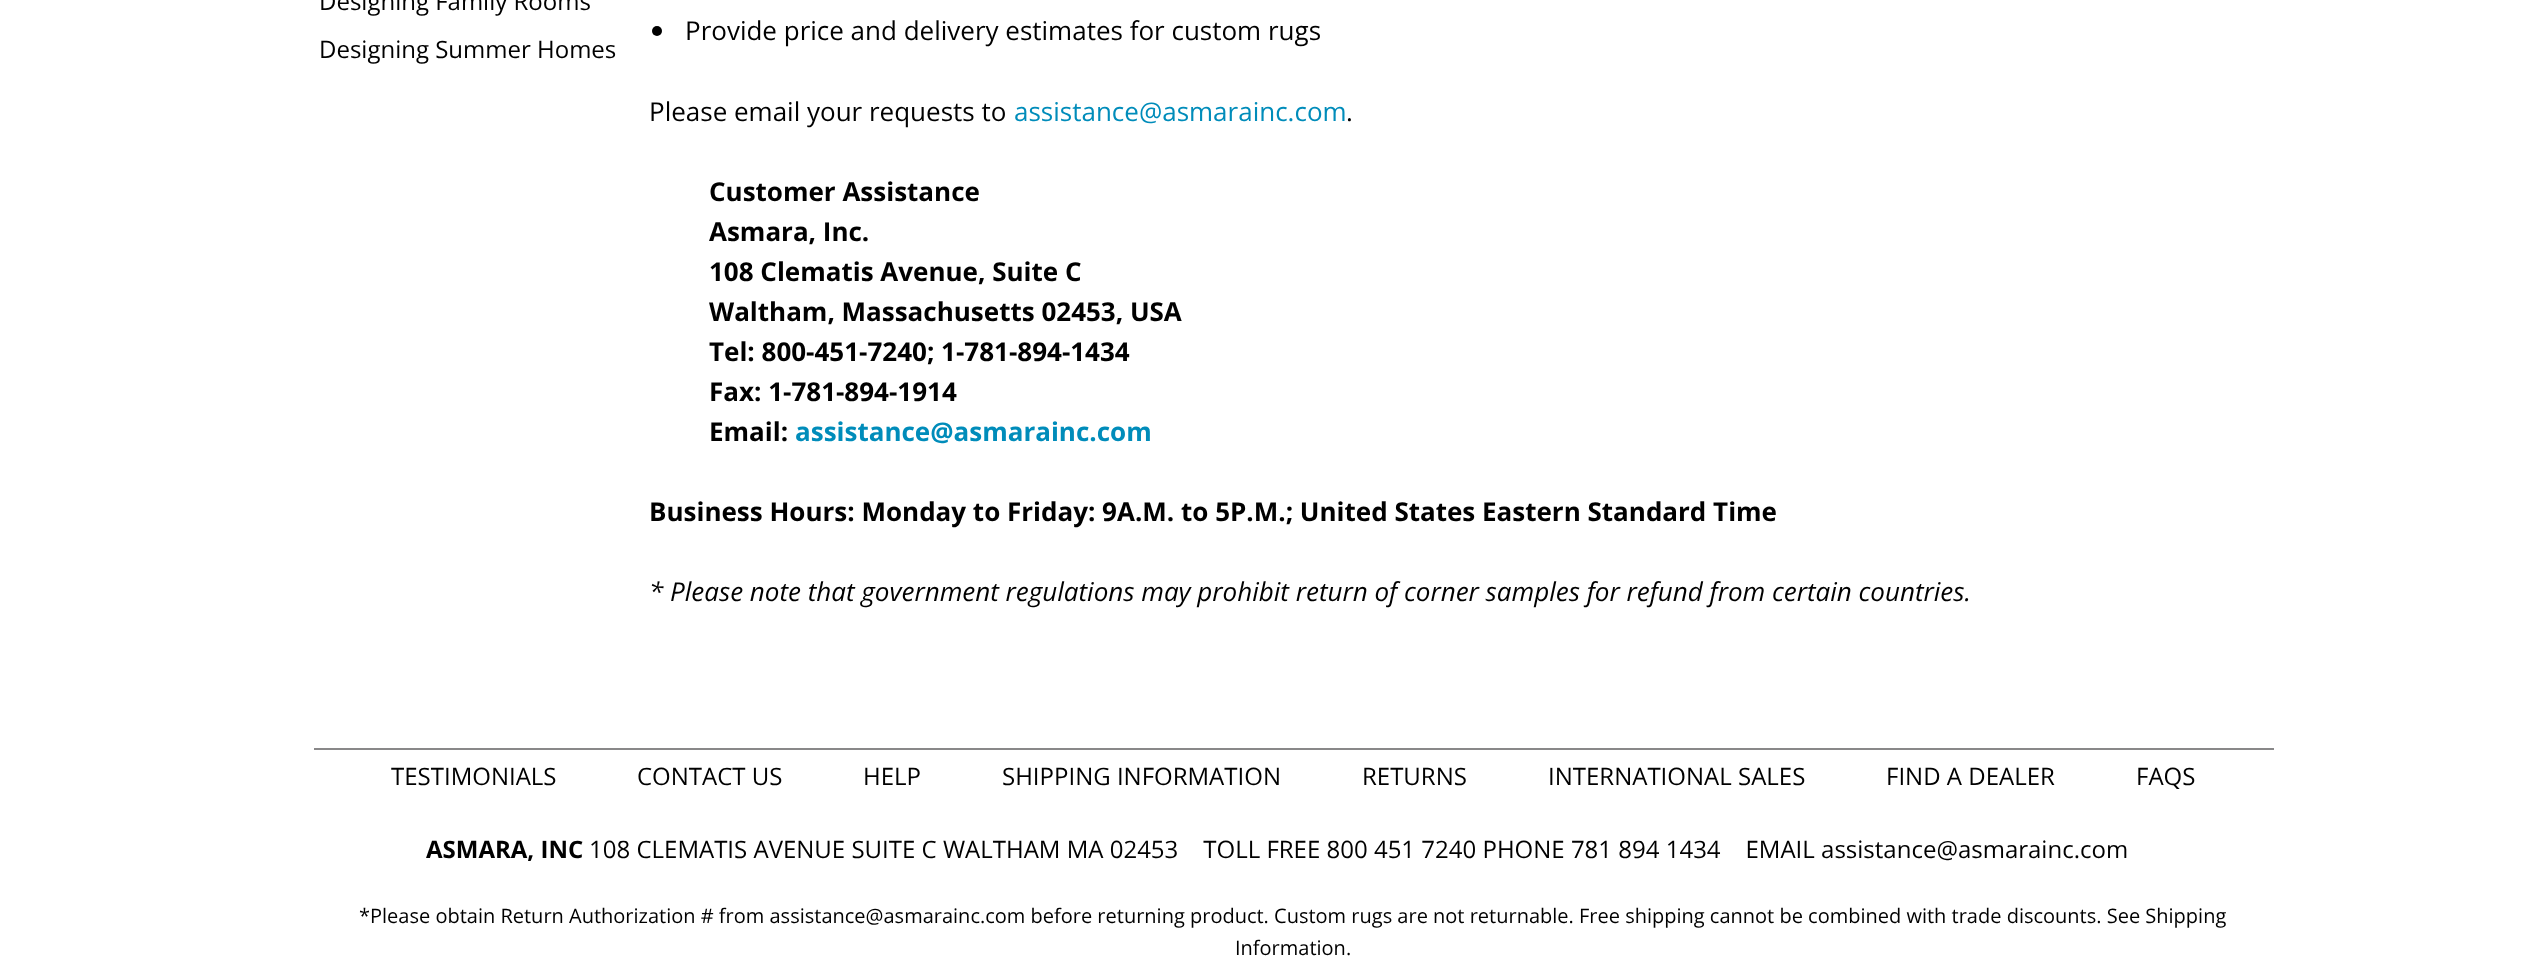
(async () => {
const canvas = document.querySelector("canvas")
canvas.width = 2546
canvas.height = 970
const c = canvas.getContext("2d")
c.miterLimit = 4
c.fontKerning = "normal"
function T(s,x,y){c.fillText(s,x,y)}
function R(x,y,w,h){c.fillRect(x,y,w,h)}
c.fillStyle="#fff"
R(0,0,2546,970)
c.font="24px Open Sans"
c.fillStyle="#000"
T("Designing Family Rooms",319,10)
T("Designing Summer Homes",319,58)
c.beginPath()
c.arc(657,31,5,0,7)
c.fill()
c.font="26px Open Sans"
T("Provide price and delivery estimates for custom rugs",685,40)
T("Please email your requests to",649,121)
c.fillStyle="#008cba"
T("assistance@asmarainc.com",1014,121)
c.fillStyle="#000"
T(".",1346,121)
c.font="bold 26px Open Sans"
T("Customer Assistance",709,201)
T("Asmara, Inc.",709,241)
T("108 Clematis Avenue, Suite C",709,281)
T("Waltham, Massachusetts 02453, USA",709,321)
T("Tel: 800-451-7240; 1-781-894-1434",709,361)
T("Fax: 1-781-894-1914",709,401)
T("Email:",709,441)
c.fillStyle="#008cba"
T("assistance@asmarainc.com",795,441)
c.fillStyle="#000"
T("Business Hours: Monday to Friday: 9A.M. to 5P.M.; United States Eastern Standard Time",649,521)
c.font="italic 26px Open Sans"
T("* Please note that government regulations may prohibit return of corner samples for refund from certain countries.",649,601)
c.fillStyle="#898889"
R(314,748,1960,2)
c.font="24px Open Sans"
c.fillStyle="#000"
T("TESTIMONIALS",391,785)
T("CONTACT US",637,785)
T("HELP",863,785)
T("SHIPPING INFORMATION",1002,785)
T("RETURNS",1362,785)
T("INTERNATIONAL SALES",1548,785)
T("FIND A DEALER",1886,785)
T("FAQS",2136,785)
c.font="bold 24px Open Sans"
T("ASMARA, INC",426,858)
c.font="24px Open Sans"
T("108 CLEMATIS AVENUE SUITE C WALTHAM MA 02453    TOLL FREE 800 451 7240 PHONE 781 894 1434    EMAIL assistance@asmarainc.com",589,858)
c.font="20px Open Sans"
T("*Please obtain Return Authorization # from assistance@asmarainc.com before returning product. Custom rugs are not returnable. Free shipping cannot be combined with trade discounts. See Shipping",359,923)
T("Information.",1235,955)
})()
